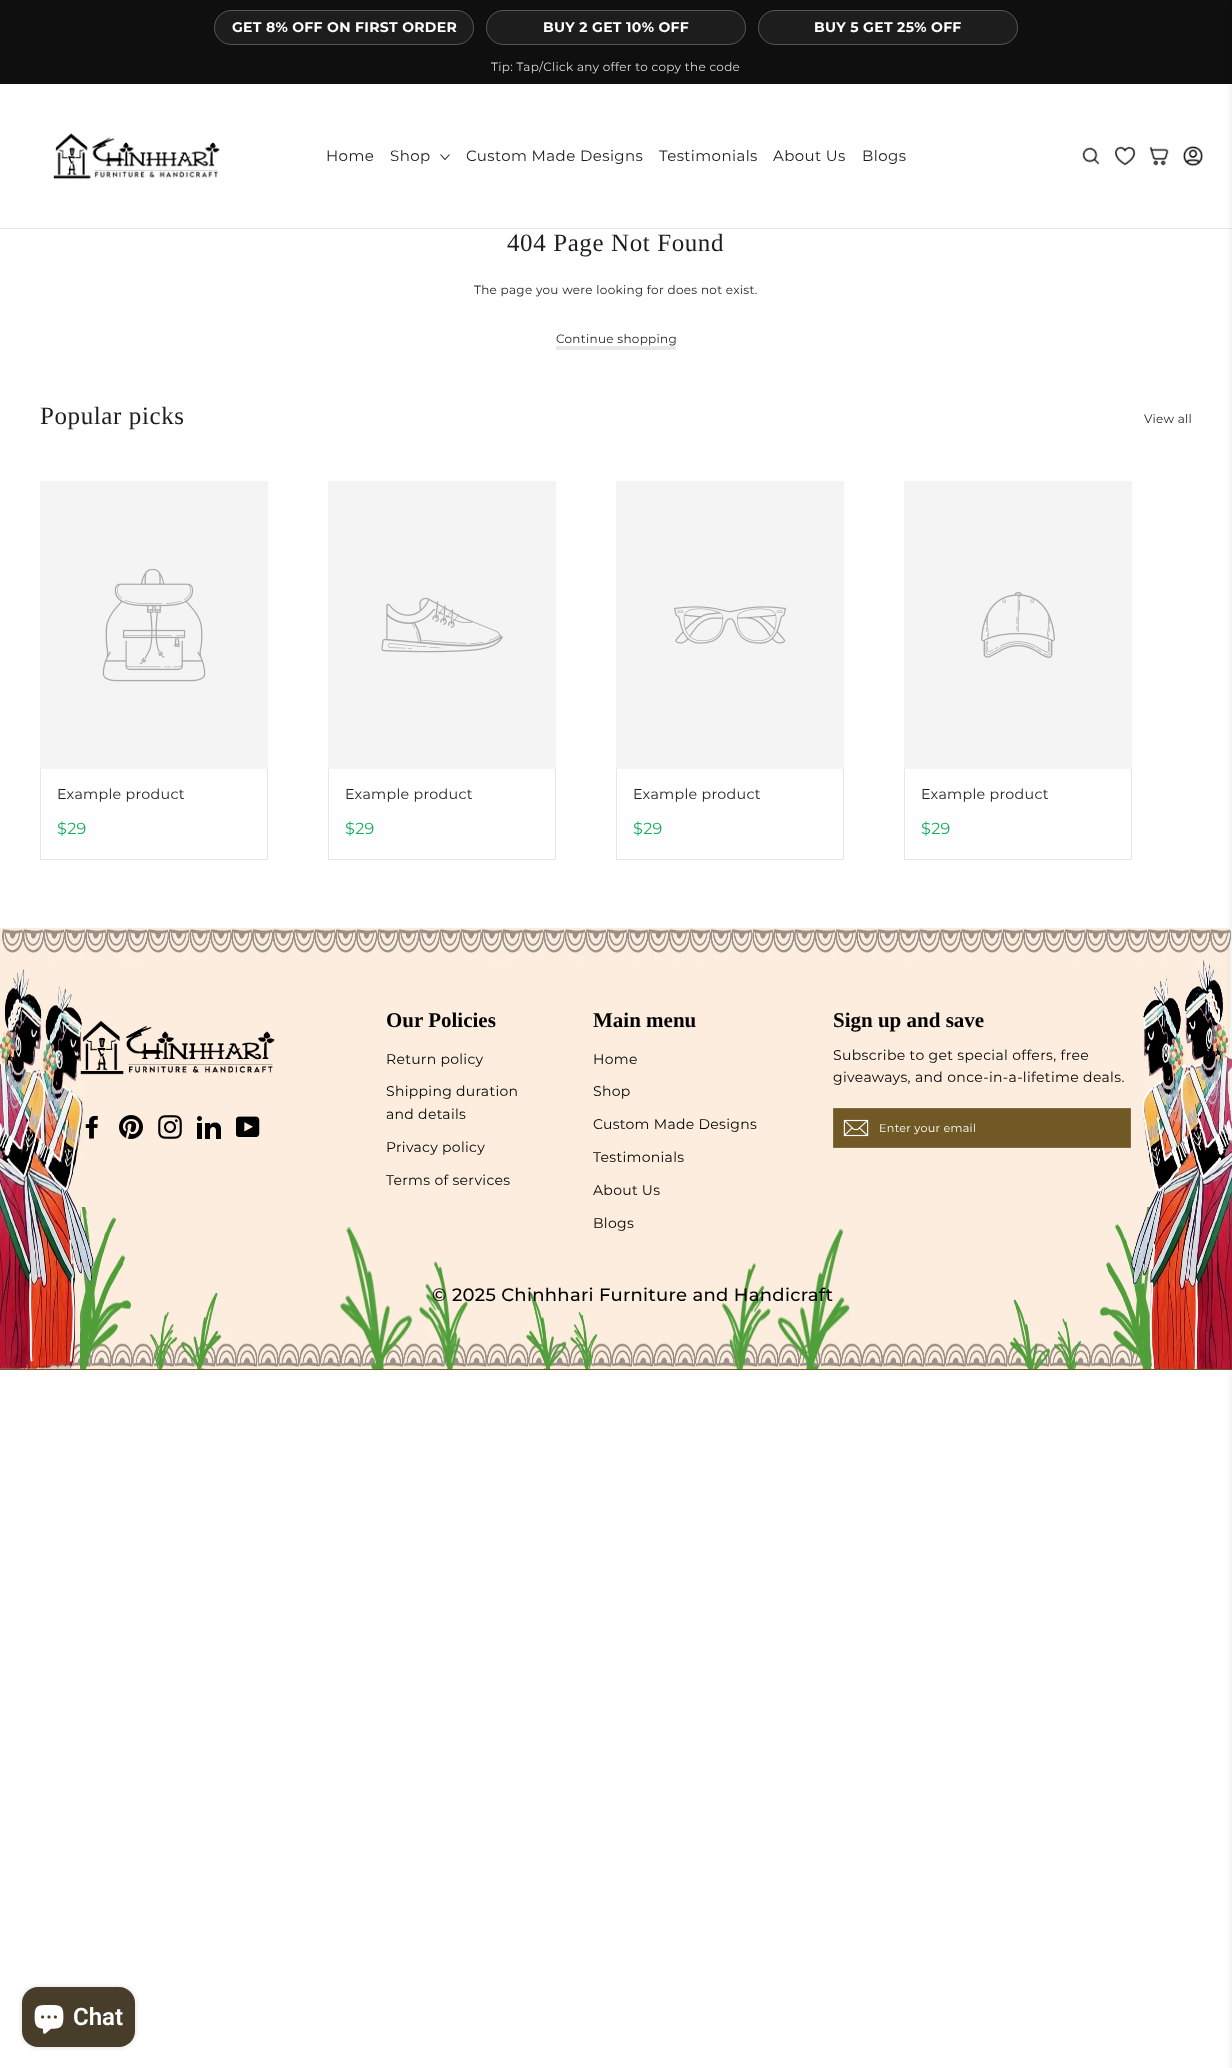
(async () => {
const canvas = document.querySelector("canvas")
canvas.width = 1232
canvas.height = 2068
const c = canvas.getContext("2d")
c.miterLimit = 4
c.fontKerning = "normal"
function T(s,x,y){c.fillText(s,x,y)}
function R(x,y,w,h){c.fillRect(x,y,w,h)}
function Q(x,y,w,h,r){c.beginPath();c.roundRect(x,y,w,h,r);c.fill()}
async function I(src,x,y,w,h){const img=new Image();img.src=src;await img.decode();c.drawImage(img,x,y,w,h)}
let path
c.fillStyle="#fff"
R(0,0,1232,2068)
c.fillStyle="#0f0f0f"
R(0,0,1232,84)
c.fillStyle="#1d1d1d"
Q(214,10,260,35,17.5)
c.beginPath()
c.roundRect(214.5,10.5,259,34,17)
c.strokeStyle="#ffffff40"
c.stroke()
c.letterSpacing="0.3px"
c.font="bold 14px Montserrat"
c.fillStyle="#fff"
T("GET 8% OFF ON FIRST ORDER",232,32)
c.fillStyle="#1d1d1d"
Q(486,10,260,35,17.5)
c.beginPath()
c.roundRect(486.5,10.5,259,34,17)
c.stroke()
c.fillStyle="#fff"
T("BUY 2 GET 10% OFF",543,32)
c.fillStyle="#1d1d1d"
Q(758,10,260,35,17.5)
c.beginPath()
c.roundRect(758.5,10.5,259,34,17)
c.stroke()
c.fillStyle="#fff"
T("BUY 5 GET 25% OFF",814,32)
c.font="12px Montserrat"
c.fillStyle="#d6d6d6"
T("Tip: Tap/Click any offer to copy the code",491,71)
c.fillStyle="#e8e8e1"
R(0,228,1232,1)
await I("1.png",53,133,167,47)
c.letterSpacing="0.4px"
c.font="15px Montserrat"
c.fillStyle="#1c1d1d"
T("Home",326,161)
T("Shop",390,161)
path = new Path2D("M440.5 154.5l4.5 5l4.5-5")
c.strokeStyle="#1c1d1d"
c.lineWidth=1.1
c.stroke(path)
T("Custom Made Designs",466,161)
T("Testimonials",659,161)
T("About Us",773,161)
T("Blogs",862,161)
await I("2.png",1082,147,18,18)
await I("3.png",1115,146,21,20)
await I("4.png",1149,146,20,20)
await I("5.png",1183,146,20,20)
c.letterSpacing="0.6px"
c.font="25px Liberation Serif"
T("404 Page Not Found",507,251)
c.letterSpacing="0.3px"
c.font="12px Montserrat"
T("The page you were looking for does not exist.",474,294)
T("Continue shopping",556,343)
c.fillStyle="#e8e8e8"
R(556,346,120,4)
c.letterSpacing="0.6px"
c.font="25px Liberation Serif"
c.fillStyle="#1c1d1d"
T("Popular picks",40,424)
c.letterSpacing="0.3px"
c.font="12px Montserrat"
T("View all",1144,423)
c.fillStyle="#f4f4f4"
R(40,481,228,288)
await I("6.png",102,568,104,114)
c.fillStyle="#e6e6e6"
R(267,769,1,91)
R(40,859,228,1)
R(40,769,1,91)
c.font="14.25px Montserrat"
c.fillStyle="#1c1d1d"
T("Example product",57,799)
c.font="16px Montserrat"
c.fillStyle="#14ae5c"
T("$29",57,834)
c.fillStyle="#f4f4f4"
R(328,481,228,288)
await I("7.png",381,597,122,56)
c.fillStyle="#e6e6e6"
R(555,769,1,91)
R(328,859,228,1)
R(328,769,1,91)
c.font="14.25px Montserrat"
c.fillStyle="#1c1d1d"
T("Example product",345,799)
c.font="16px Montserrat"
c.fillStyle="#14ae5c"
T("$29",345,834)
c.fillStyle="#f4f4f4"
R(616,481,228,288)
await I("8.png",674,606,112,38)
c.fillStyle="#e6e6e6"
R(843,769,1,91)
R(616,859,228,1)
R(616,769,1,91)
c.font="14.25px Montserrat"
c.fillStyle="#1c1d1d"
T("Example product",633,799)
c.font="16px Montserrat"
c.fillStyle="#14ae5c"
T("$29",633,834)
c.fillStyle="#f4f4f4"
R(904,481,228,288)
await I("9.png",981,592,74,66)
c.fillStyle="#e6e6e6"
R(1131,769,1,91)
R(904,859,228,1)
R(904,769,1,91)
c.font="14.25px Montserrat"
c.fillStyle="#1c1d1d"
T("Example product",921,799)
c.font="16px Montserrat"
c.fillStyle="#14ae5c"
T("$29",921,834)
c.fillStyle="#715925"
R(0,1369,1232,1)
await I("10.png",0,928,1232,441)
await I("11.png",80,1020,195,55)
await I("12.png",85,1115,13,24)
await I("13.png",119,1115,24,24)
await I("14.png",158,1115,24,24)
await I("15.png",197,1116,24,23)
await I("16.png",236,1116,24,21)
c.letterSpacing="0px"
c.font="bold 21px Liberation Serif"
c.fillStyle="#000"
T("Our Policies",386,1027)
c.letterSpacing="0.3px"
c.font="14px Montserrat"
T("Return policy",386,1064)
T("Shipping duration",386,1096)
T("and details",386,1119)
T("Privacy policy",386,1152)
T("Terms of services",386,1185)
c.letterSpacing="0px"
c.font="bold 21px Liberation Serif"
T("Main menu",593,1027)
c.letterSpacing="0.3px"
c.font="14px Montserrat"
T("Home",593,1064)
T("Shop",593,1096)
T("Custom Made Designs",593,1129)
T("Testimonials",593,1162)
T("About Us",593,1195)
T("Blogs",593,1228)
c.letterSpacing="0px"
c.font="bold 21px Liberation Serif"
T("Sign up and save",833,1027)
c.letterSpacing="0.35px"
c.font="14px Montserrat"
T("Subscribe to get special offers, free",833,1060)
T("giveaways, and once-in-a-lifetime deals.",833,1082)
c.fillStyle="#715925"
c.beginPath()
c.rect(833.5,1108.5,297,39)
c.fill()
c.strokeStyle="#826d3f"
c.lineWidth=1
c.stroke()
await I("17.png",843,1119,26,18)
c.letterSpacing="0.25px"
c.font="11.25px Montserrat"
c.fillStyle="#fff"
T("Enter your email",879,1132)
c.letterSpacing="0.3px"
c.font="500 18px Montserrat"
c.fillStyle="#000"
T("© 2025 Chinhhari Furniture and Handicraft",432,1301)
c.fillStyle="#0000001a"
c.filter="blur(3px)"
c.beginPath()
c.rect(1232,4,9,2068)
c.fill()
c.filter="none"
c.fillStyle="#00000026"
c.filter="blur(2.5px)"
c.beginPath()
c.roundRect(22,1987,113,60,16)
c.fill()
c.filter="none"
c.fillStyle="#473d2a"
Q(22,1987,113,60,16)
await I("18.png",34,2005,30,29)
c.letterSpacing="0px"
c.font="600 24px Roboto"
c.fillStyle="#fff"
T("Chat",73,2025)
})()
